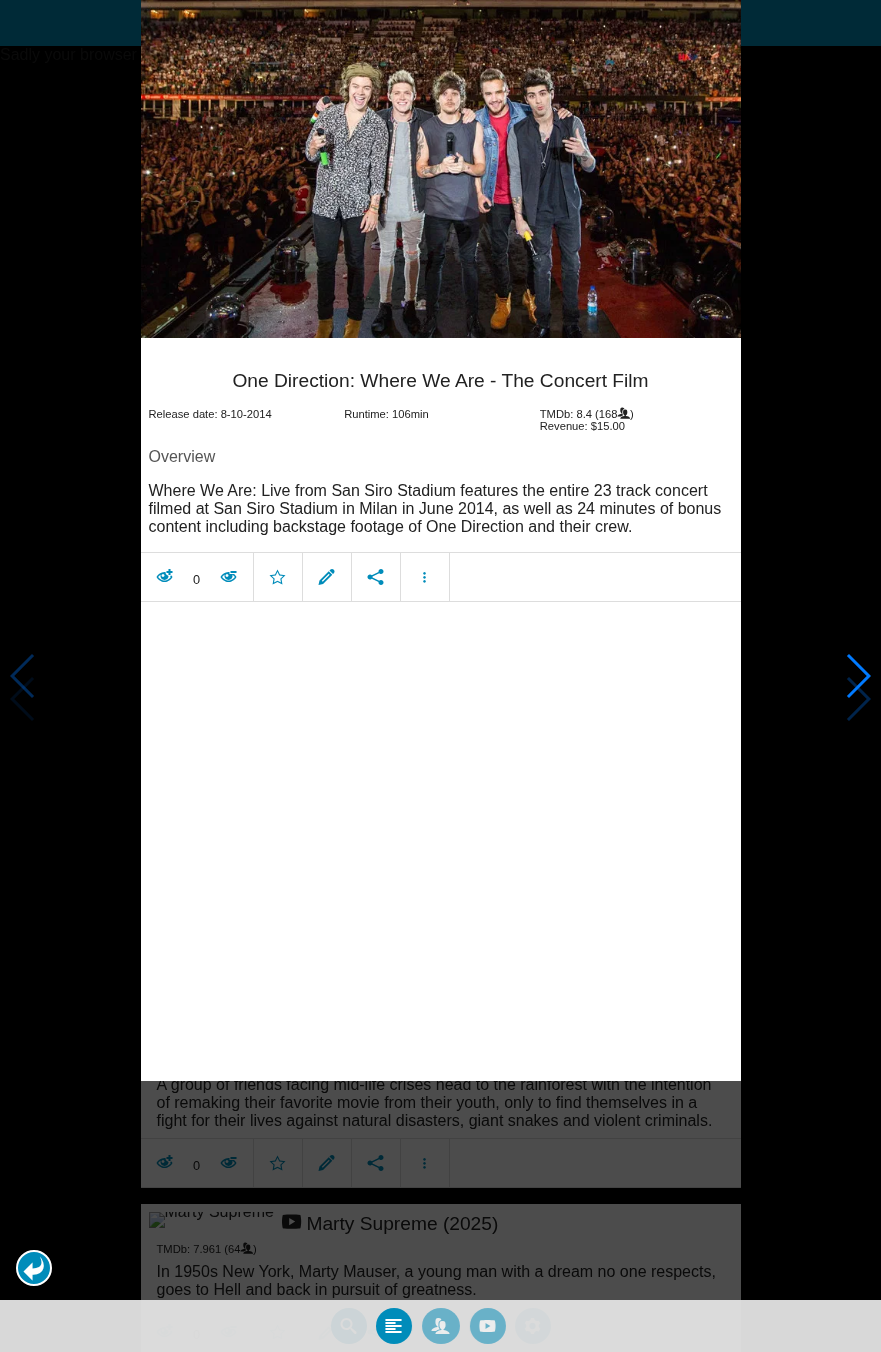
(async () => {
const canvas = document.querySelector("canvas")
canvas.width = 881
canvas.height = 1352
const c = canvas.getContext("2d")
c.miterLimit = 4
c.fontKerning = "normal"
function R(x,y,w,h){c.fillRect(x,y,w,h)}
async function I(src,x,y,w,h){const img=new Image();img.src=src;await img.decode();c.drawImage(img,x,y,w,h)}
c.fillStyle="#fff"
R(0,0,881,1352)
await I("1.png",0,0,881,1352)
})()
